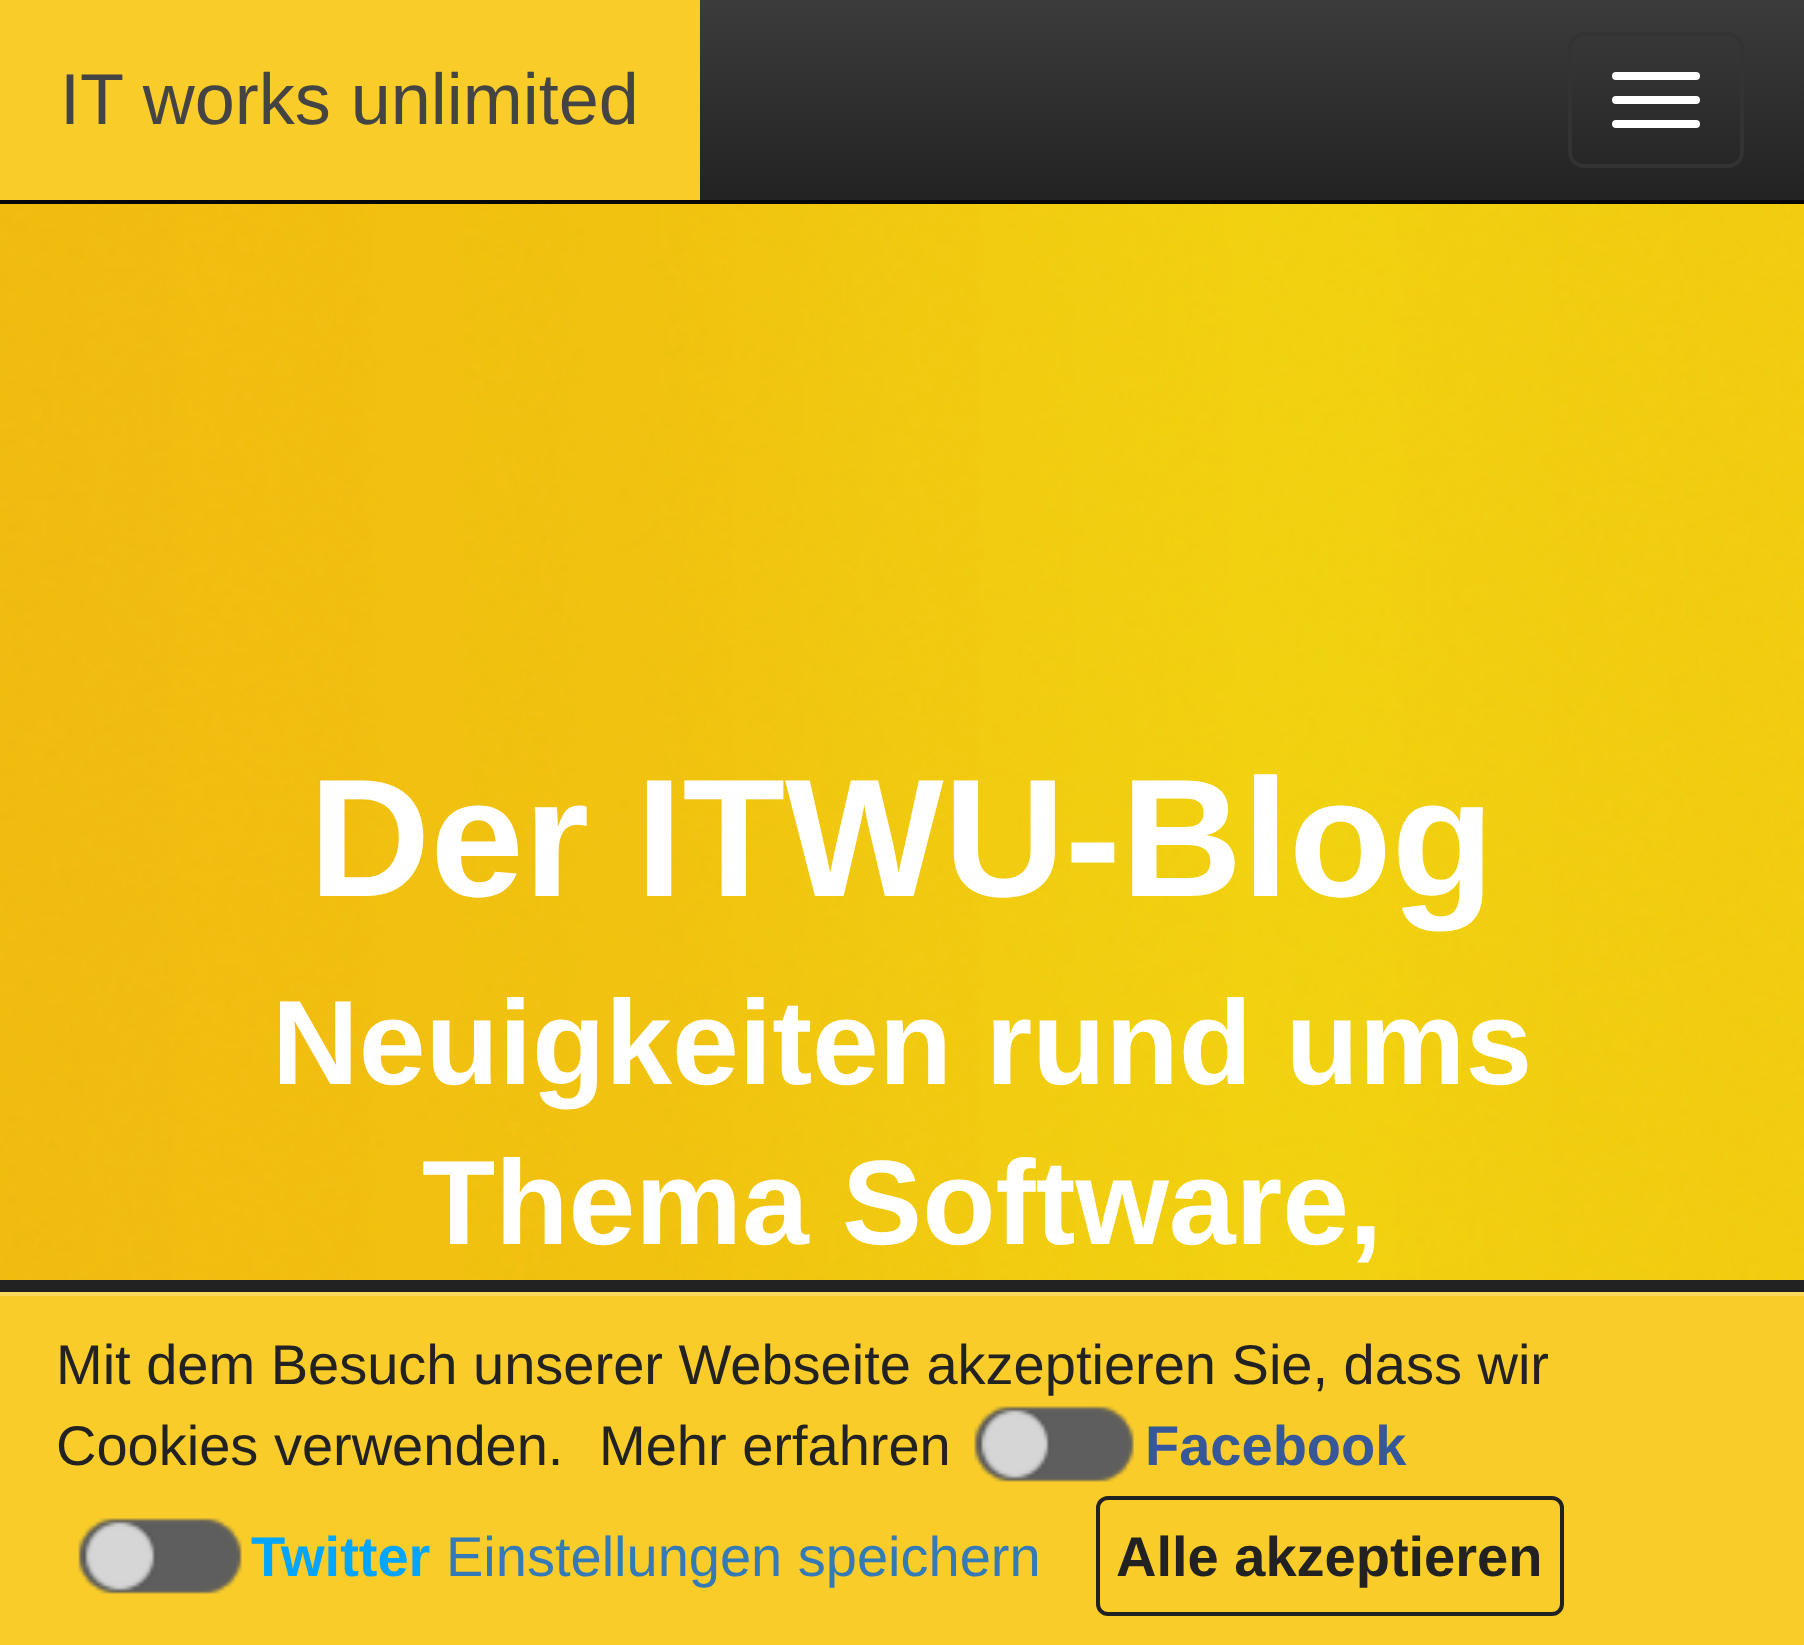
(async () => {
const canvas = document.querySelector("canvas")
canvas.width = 1804
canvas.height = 1645
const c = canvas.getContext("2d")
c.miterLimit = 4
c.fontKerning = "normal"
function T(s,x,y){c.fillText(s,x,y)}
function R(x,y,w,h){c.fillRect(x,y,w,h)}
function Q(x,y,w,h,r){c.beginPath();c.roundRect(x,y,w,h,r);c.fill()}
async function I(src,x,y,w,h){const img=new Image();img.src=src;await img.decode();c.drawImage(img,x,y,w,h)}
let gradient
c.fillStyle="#fff"
R(0,0,1804,1645)
gradient = c.createLinearGradient(902,0,902,200)
gradient.addColorStop(0,"#3c3c3c")
gradient.addColorStop(1,"#222")
c.fillStyle = gradient
R(700,0,1104,200)
c.fillStyle="#080808"
R(0,200,1804,4)
c.fillStyle="#f9cc29"
R(0,0,700,200)
c.font="72px Liberation Sans"
c.fillStyle="#444"
T("IT works unlimited",60,124)
c.beginPath()
c.roundRect(1570,34,172,132,14)
c.strokeStyle="#333"
c.lineWidth=4
c.stroke()
c.fillStyle="#fff"
Q(1612,72,88,8,4)
Q(1612,96,88,8,4)
Q(1612,120,88,8,4)
await I("1.png",0,204,1804,1076)
c.font="bold 168px Liberation Sans"
T("Der ITWU-Blog",309,896)
c.font="bold 120px Liberation Sans"
T("Neuigkeiten rund ums",272,1084)
T("Thema Software,",422,1244)
c.fillStyle="#f9cc29"
R(0,1296,1804,349)
c.fillStyle="#fbd95f"
R(0,1292,1804,4)
c.fillStyle="#222"
R(0,1280,1804,12)
c.font="56px Liberation Sans"
T("Mit dem Besuch unserer Webseite akzeptieren Sie, dass wir",56,1384)
T("Cookies verwenden.",56,1465)
T("Mehr erfahren",599,1465)
await I("2.png",974,1406,160,76)
c.font="bold 56px Liberation Sans"
c.fillStyle="#365899"
T("Facebook",1145,1465)
await I("3.png",78,1518,164,76)
c.fillStyle="#00a5ff"
T("Twitter",251,1576)
c.font="56px Liberation Sans"
c.fillStyle="#337ab7"
T("Einstellungen speichern",446,1576)
c.beginPath()
c.roundRect(1098,1498,464,116,10)
c.strokeStyle="#222"
c.stroke()
c.font="bold 56px Liberation Sans"
c.fillStyle="#222"
T("Alle akzeptieren",1116,1576)
})()
